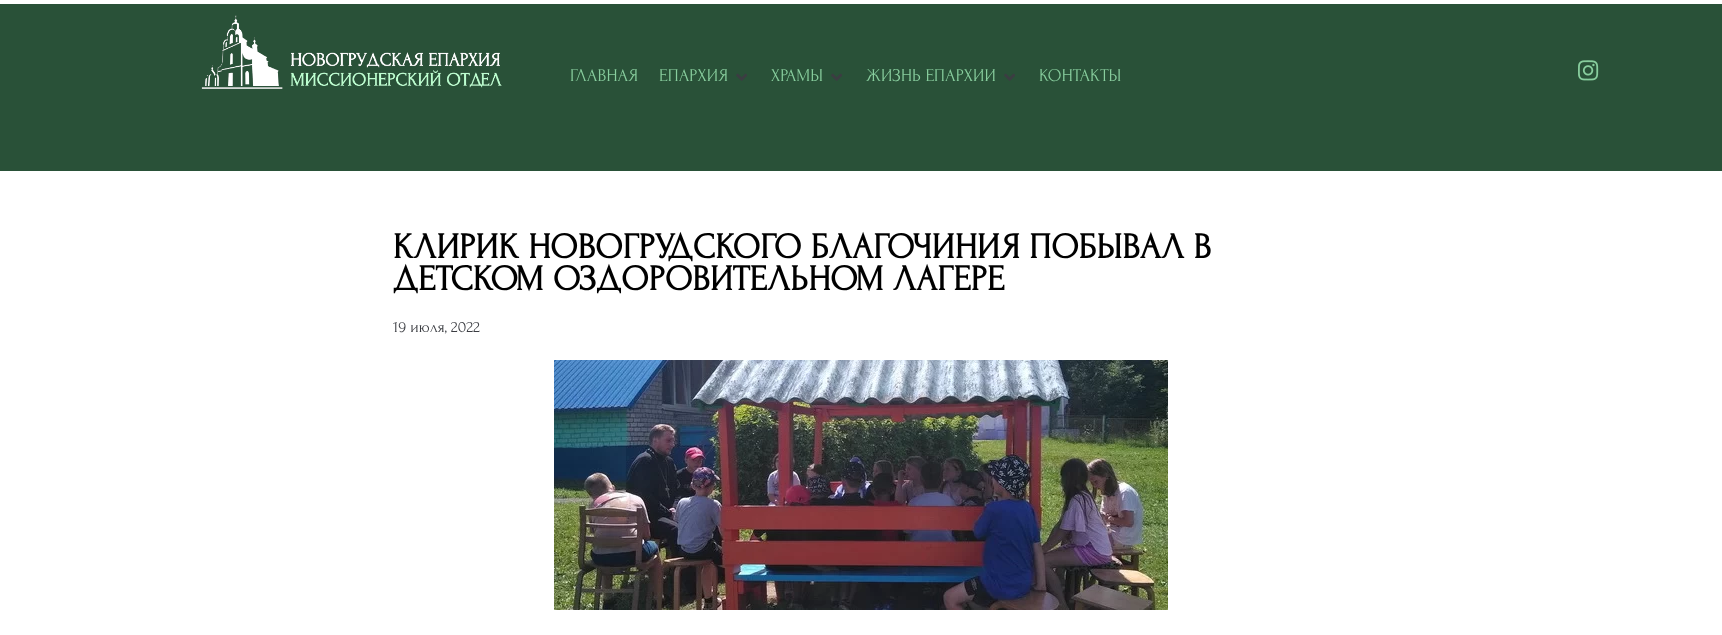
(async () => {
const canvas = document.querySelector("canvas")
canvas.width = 1722
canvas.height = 635
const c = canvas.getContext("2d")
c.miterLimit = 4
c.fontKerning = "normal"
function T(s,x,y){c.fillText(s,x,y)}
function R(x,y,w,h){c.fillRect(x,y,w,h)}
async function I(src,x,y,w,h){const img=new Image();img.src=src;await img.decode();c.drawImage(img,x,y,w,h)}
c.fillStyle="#fff"
R(0,0,1722,635)
c.fillStyle="#295138"
R(0,4,1722,167)
await I("1.png",201,15,301,74)
c.font="18px Forum"
c.fillStyle="#88ce9e"
T("ГЛАВНАЯ",570,81)
T("ЕПАРХИЯ",659,81)
await I("2.png",736,73,11,8)
T("ХРАМЫ",771,81)
await I("2.png",831,73,11,8)
T("ЖИЗНЬ ЕПАРХИИ",866,81)
await I("2.png",1004,73,11,8)
T("КОНТАКТЫ",1039,81)
await I("3.png",1578,60,21,21)
c.font="bold 36px Forum"
c.fillStyle="#000"
T("КЛИРИК НОВОГРУДСКОГО БЛАГОЧИНИЯ ПОБЫВАЛ В",393,258)
T("ДЕТСКОМ ОЗДОРОВИТЕЛЬНОМ ЛАГЕРЕ",393,290)
c.font="16px Forum"
c.fillStyle="#3b3d42"
T("19 июля, 2022",393,332)
await I("4.png",554,360,614,250)
})()
